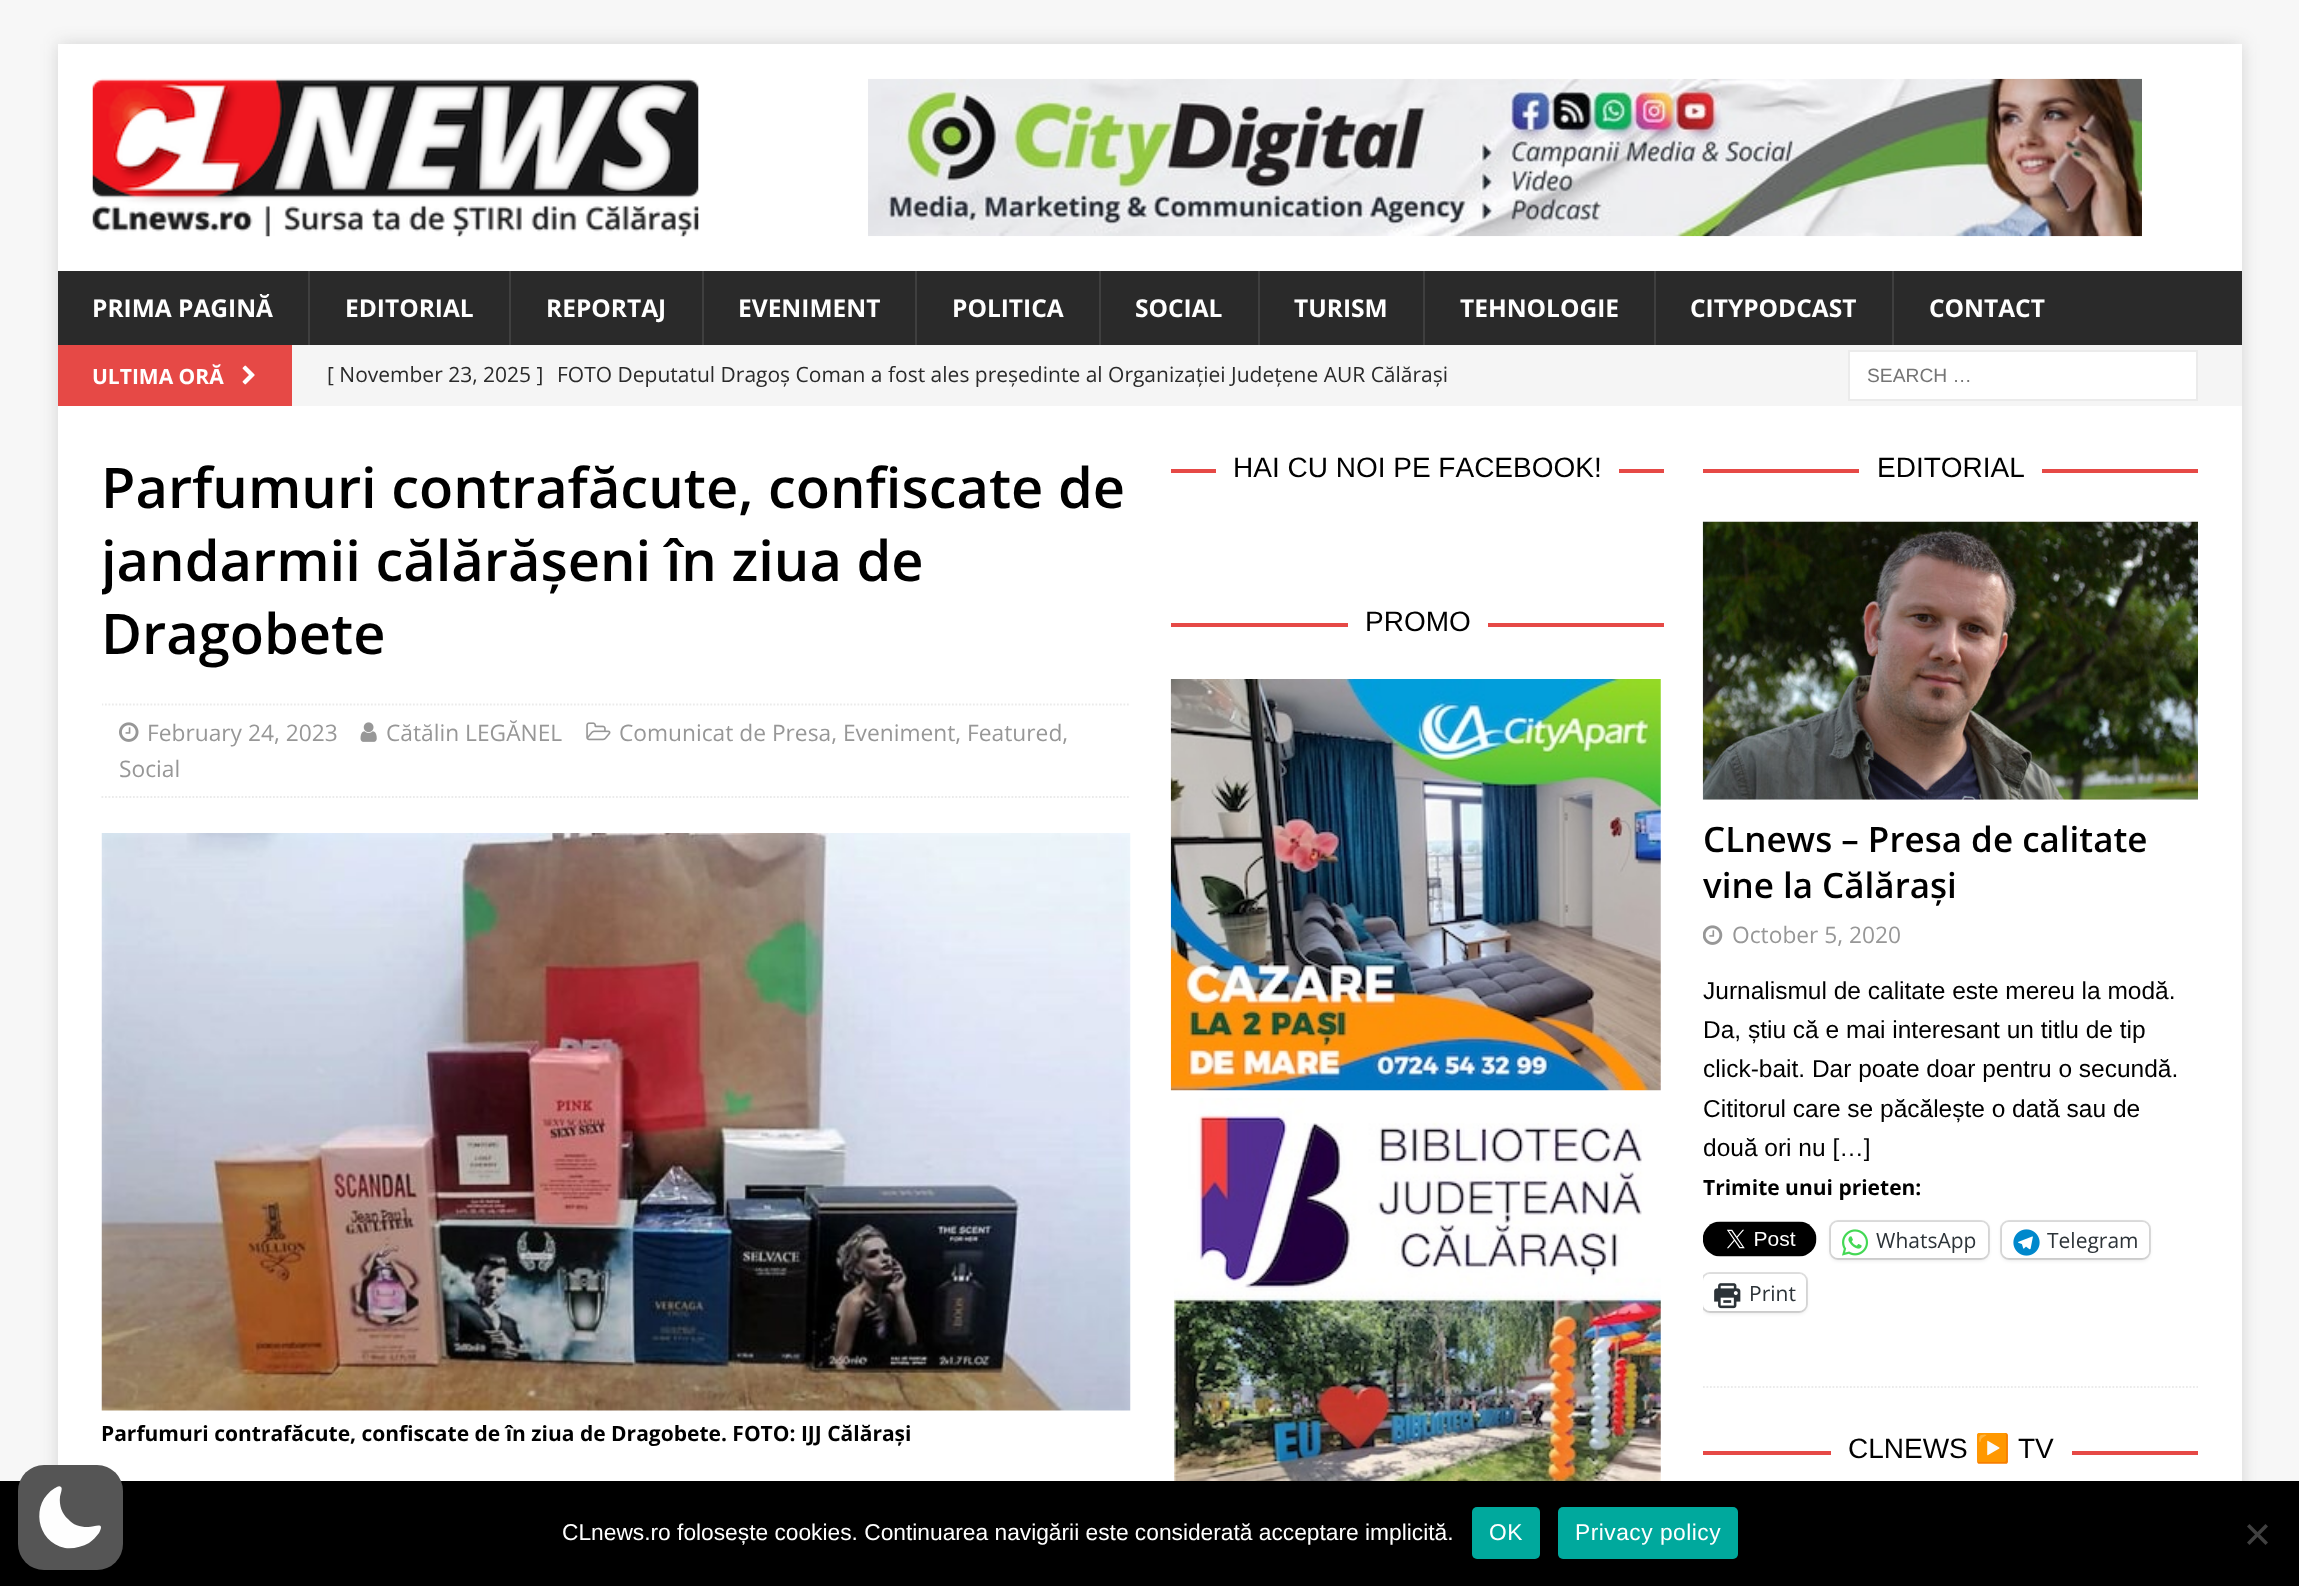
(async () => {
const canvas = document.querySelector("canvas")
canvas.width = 2299
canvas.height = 1586
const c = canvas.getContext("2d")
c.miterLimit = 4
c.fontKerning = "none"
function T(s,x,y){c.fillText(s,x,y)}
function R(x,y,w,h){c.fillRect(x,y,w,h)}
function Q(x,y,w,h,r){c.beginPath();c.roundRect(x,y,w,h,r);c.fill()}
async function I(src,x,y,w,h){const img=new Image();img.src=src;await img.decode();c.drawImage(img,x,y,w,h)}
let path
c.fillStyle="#f7f7f7"
R(0,0,2299,1586)
c.fillStyle="#3232322b"
c.filter="blur(9px)"
c.beginPath()
c.rect(58,44,2184,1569)
c.fill()
c.filter="none"
c.fillStyle="#fff"
R(58,44,2184,227)
await I("1.png",92,78,607,159)
await I("2.png",868,78,1274,159)
c.fillStyle="#2a2a2a"
R(58,271,2184,74)
c.font="bold 24.5px Open Sans"
c.fillStyle="#fff"
T("PRIMA PAGINĂ",92,317)
c.fillStyle="#3f3f3f"
R(308,271,2,74)
c.fillStyle="#fff"
T("EDITORIAL",345,317)
c.fillStyle="#3f3f3f"
R(509,271,2,74)
c.fillStyle="#fff"
T("REPORTAJ",546,317)
c.fillStyle="#3f3f3f"
R(702,271,2,74)
c.fillStyle="#fff"
T("EVENIMENT",738,317)
c.fillStyle="#3f3f3f"
R(915,271,2,74)
c.fillStyle="#fff"
T("POLITICA",952,317)
c.fillStyle="#3f3f3f"
R(1099,271,2,74)
c.fillStyle="#fff"
T("SOCIAL",1135,317)
c.fillStyle="#3f3f3f"
R(1258,271,2,74)
c.fillStyle="#fff"
T("TURISM",1294,317)
c.fillStyle="#3f3f3f"
R(1423,271,2,74)
c.fillStyle="#fff"
T("TEHNOLOGIE",1460,317)
c.fillStyle="#3f3f3f"
R(1654,271,2,74)
c.fillStyle="#fff"
T("CITYPODCAST",1690,317)
c.fillStyle="#3f3f3f"
R(1892,271,2,74)
c.fillStyle="#fff"
T("CONTACT",1929,317)
c.fillStyle="#f5f5f5"
R(292,345,1950,61)
c.fillStyle="#e64946"
R(58,345,234,61)
c.font="bold 21px Open Sans"
c.fillStyle="#fff"
T("ULTIMA ORĂ",92,384)
await I("3.png",242,365,13,20)
c.font="21px Open Sans"
c.fillStyle="#2a2a2a"
T("[ November 23, 2025 ]",327,382)
T("FOTO Deputatul Dragoș Coman a fost ales președinte al Organizației Județene AUR Călărași",557,382)
c.fillStyle="#fff"
c.beginPath()
c.rect(1849,351,348,49)
c.fill()
c.strokeStyle="#ebebeb"
c.lineWidth=2
c.stroke()
c.font="19.25px Liberation Sans"
c.fillStyle="#757575"
T("SEARCH …",1867,382)
c.fillStyle="#fff"
R(58,406,2184,1075)
c.font="600 56px Open Sans"
c.fillStyle="#000"
T("Parfumuri contrafăcute, confiscate de",101,508)
c.save()
c.beginPath()
c.rect(102,450,1029,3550)
c.clip()
T("jandarmii călărășeni în ziua de",101,581)
c.restore()
T("Dragobete",101,654)
c.save()
c.beginPath()
c.rect(102,450,1029,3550)
c.clip()
path = new Path2D("M101.5 704.5h1029")
c.lineWidth=1.8
c.setLineDash([1.75,1.75])
c.stroke(path)
c.restore()
path = new Path2D("M101.5 797h1029")
c.lineWidth=1.8
c.setLineDash([1.75,1.75])
c.stroke(path)
await I("4.png",360,722,17,20)
c.font="22.75px Open Sans"
c.fillStyle="#979797"
T("Cătălin LEGĂNEL",386,741)
await I("5.png",586,722,25,19)
T("Comunicat de Presa, Eveniment, Featured,",619,741)
T("Social",119,777)
await I("6.png",119,722,20,20)
T("February 24, 2023",147,741)
await I("7.png",101,833,1030,578)
c.font="bold 21px Open Sans"
c.fillStyle="#000"
T("Parfumuri contrafăcute, confiscate de în ziua de Dragobete. FOTO: IJJ Călărași",101,1441)
c.fillStyle="#e64946"
R(1171,469,493,4)
c.fillStyle="#fff"
R(1216,469,403,4)
c.font="28px Liberation Sans"
c.fillStyle="#000"
T("HAI CU NOI PE FACEBOOK!",1233,477)
c.fillStyle="#e64946"
R(1171,623,493,4)
c.fillStyle="#fff"
R(1348,623,140,4)
c.fillStyle="#000"
T("PROMO",1365,631)
await I("8.png",1170,679,491,412)
await I("9.png",1174,1098,487,383)
c.fillStyle="#e64946"
R(1703,469,495,4)
c.fillStyle="#fff"
R(1859,469,183,4)
c.fillStyle="#000"
T("EDITORIAL",1877,477)
path = new Path2D("M1703 1387h495")
c.stroke(path)
await I("10.png",1702,521,496,279)
c.font="600 35px Open Sans"
T("CLnews – Presa de calitate",1703,852)
T("vine la Călărași",1703,898)
await I("11.png",1703,925,20,20)
c.font="22.75px Open Sans"
c.fillStyle="#979797"
T("October 5, 2020",1732,943)
c.font="24.5px Liberation Sans"
c.fillStyle="#000"
T("Jurnalismul de calitate este mereu la modă.",1703,999)
T("Da, știu că e mai interesant un titlu de tip",1703,1038)
T("click-bait. Dar poate doar pentru o secundă.",1703,1077)
T("Cititorul care se păcălește o dată sau de",1703,1117)
T("două ori nu […]",1703,1156)
c.font="bold 21px Open Sans"
T("Trimite unui prieten:",1703,1195)
await I("12.png",1703,1221,114,36)
c.beginPath()
c.roundRect(1830,1221,159,38,8)
c.strokeStyle="#e0e0e0"
c.lineWidth=2
c.setLineDash([])
c.stroke()
c.fillStyle="#0000001f"
c.filter="blur(2px)"
c.beginPath()
c.roundRect(1831,1223,157,37,7)
c.fill()
c.filter="none"
c.fillStyle="#fff"
Q(1831,1222,157,36,7)
await I("13.png",1842,1229,27,27)
c.font="21px Open Sans"
c.fillStyle="#2c3338"
T("WhatsApp",1876,1248)
c.beginPath()
c.roundRect(2001,1221,149,38,8)
c.stroke()
c.fillStyle="#0000001f"
c.filter="blur(2px)"
c.beginPath()
c.roundRect(2002,1223,147,37,7)
c.fill()
c.filter="none"
c.fillStyle="#fff"
Q(2002,1222,147,36,7)
await I("14.png",2013,1229,27,27)
c.fillStyle="#2c3338"
T("Telegram",2047,1248)
c.save()
c.beginPath()
c.rect(1703,450,495,938)
c.clip()
c.beginPath()
c.roundRect(1702,1273,105,39,8)
c.stroke()
c.restore()
c.save()
c.beginPath()
c.rect(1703,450,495,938)
c.clip()
c.fillStyle="#0000001f"
c.filter="blur(2px)"
c.beginPath()
c.roundRect(1703,1276,103,37,7)
c.fill()
c.filter="none"
c.restore()
c.fillStyle="#fff"
Q(1703,1274,103,37,7)
await I("15.png",1714,1283,27,26)
c.fillStyle="#2c3338"
T("Print",1749,1301)
c.fillStyle="#e64946"
R(1703,1451,495,4)
c.fillStyle="#fff"
R(1831,1451,241,4)
c.font="28px Liberation Sans"
c.fillStyle="#000"
T("CLNEWS",1848,1458)
c.font="28px Noto Color Emoji"
T("▶️",1975,1458)
c.font="28px Liberation Sans"
T("TV",2018,1458)
R(0,1481,2299,105)
c.fillStyle="#555"
Q(18,1465,105,105,26)
c.fillStyle="#fefefe"
path = new Path2D("M61 1487c2 1-1 8-1 10c-1 8 2 17 8 22c5 6 12 8 19 8c6 1 19-7 12 6c-3 4-6 7-10 10c-7 4-16 6-24 5c-29-6-35-45-10-60c1 0 4-3 6-1z")
c.fill(path,"evenodd")
c.font="22.75px Liberation Sans"
c.fillStyle="#fff"
T("CLnews.ro folosește cookies. Continuarea navigării este considerată acceptare implicită.",562,1540)
c.fillStyle="#00a99d"
Q(1472,1507,68,52,5)
c.letterSpacing="0.5px"
c.fillStyle="#fff"
T("OK",1489,1540)
c.fillStyle="#00a99d"
Q(1558,1507,180,52,5)
c.fillStyle="#fff"
T("Privacy policy",1575,1540)
c.fillStyle="#404040"
path = new Path2D("M2265.5 1524l2.5 2.5l-18.5 18.5l-2.5-2.5z")
c.fill(path)
path = new Path2D("M2247 1526.5l2.5-2.5l18.5 18.5l-2.5 2.5z")
c.fill(path)
})()
